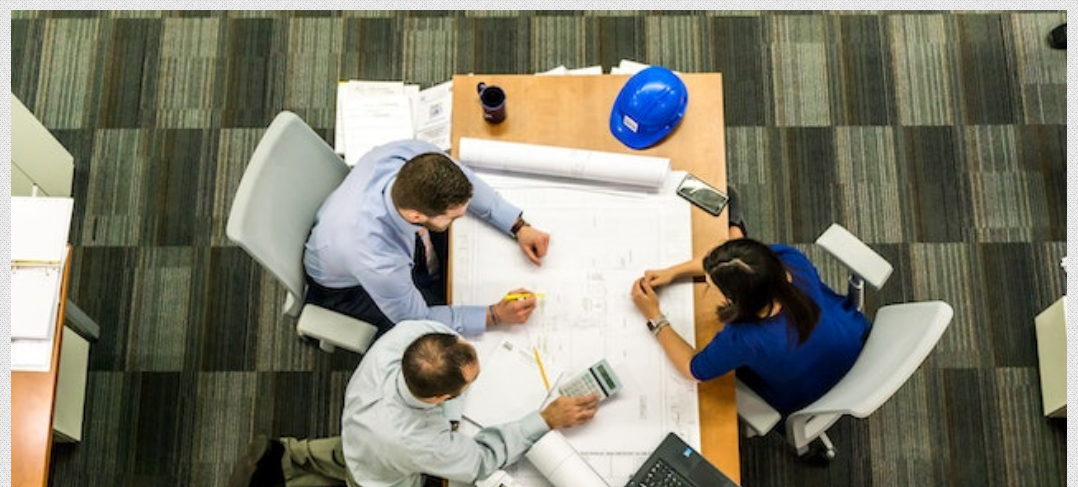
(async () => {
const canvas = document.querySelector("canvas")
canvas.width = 1078
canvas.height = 487
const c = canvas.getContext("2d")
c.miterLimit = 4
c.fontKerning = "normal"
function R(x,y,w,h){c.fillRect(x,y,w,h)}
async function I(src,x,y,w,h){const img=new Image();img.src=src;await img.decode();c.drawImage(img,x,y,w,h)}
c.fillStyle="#fff"
R(0,0,1078,487)
await I("1.png",0,0,1078,487)
await I("2.png",11,10,1056,477)
})()
